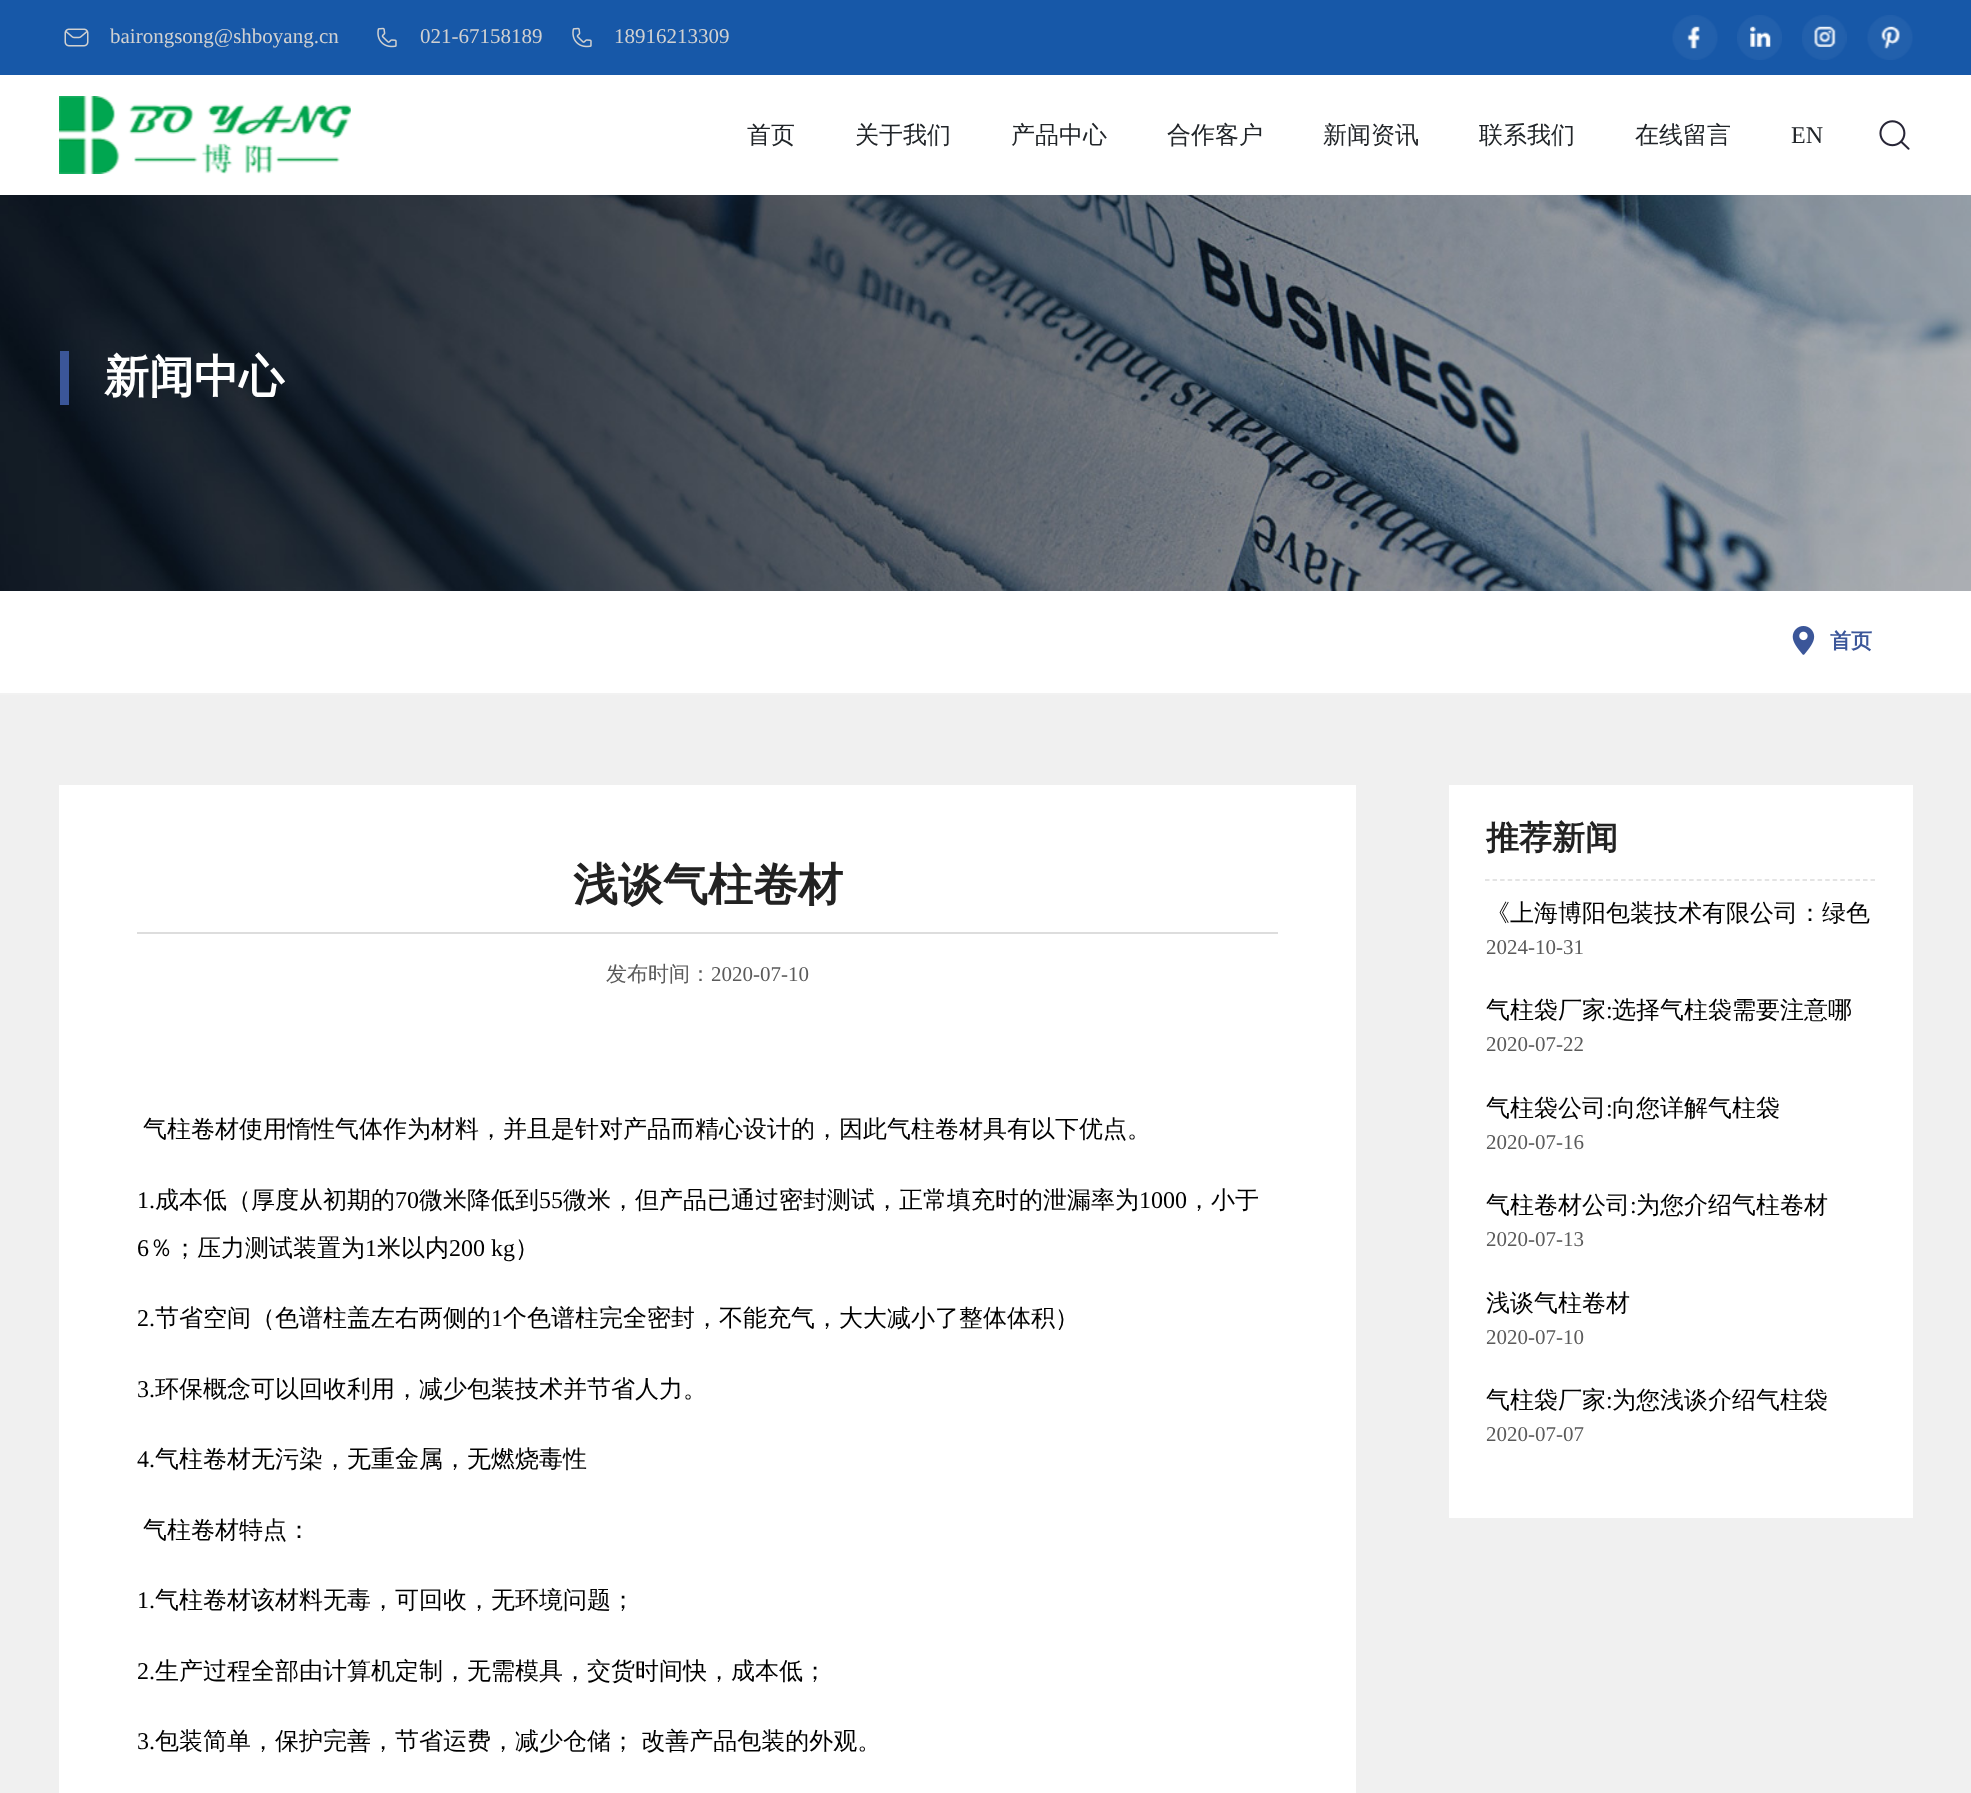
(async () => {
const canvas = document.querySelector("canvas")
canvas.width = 1971
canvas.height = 1793
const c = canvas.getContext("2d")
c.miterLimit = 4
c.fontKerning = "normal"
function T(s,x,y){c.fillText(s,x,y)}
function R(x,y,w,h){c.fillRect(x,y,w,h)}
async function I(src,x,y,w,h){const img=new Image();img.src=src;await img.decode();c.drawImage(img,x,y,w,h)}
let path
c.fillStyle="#fff"
R(0,0,1971,1793)
c.fillStyle="#1758a8"
R(0,0,1971,75)
await I("1.png",64,28,25,19)
c.font="21px Liberation Serif"
c.fillStyle="#d1d1d1"
T("bairongsong@shboyang.cn",110,43)
await I("2.png",377,27,20,21)
T("021-67158189",420,43)
await I("2.png",572,27,20,21)
T("18916213309",614,43)
await I("3.png",1672,15,46,45)
await I("4.png",1737,15,45,45)
await I("5.png",1802,15,45,45)
await I("6.png",1867,15,46,45)
await I("7.png",59,96,292,78)
c.font="500 24px WenQuanYi Zen Hei"
c.fillStyle="#212529"
T("首页",747,143)
T("关于我们",855,143)
T("产品中心",1011,143)
T("合作客户",1167,143)
T("新闻资讯",1323,143)
T("联系我们",1479,143)
T("在线留言",1635,143)
c.font="24px Liberation Serif"
T("EN",1791,143)
await I("8.png",1879,120,31,30)
await I("9.png",0,195,1971,396)
c.fillStyle="#3b5699"
R(60,351,9,54)
c.font="bold 45px WenQuanYi Zen Hei"
c.fillStyle="#fff"
T("新闻中心",104,392)
c.fillStyle="#f2f2f2"
R(0,693,1971,2)
await I("10.png",1792,626,23,29)
c.font="bold 21px WenQuanYi Zen Hei"
c.fillStyle="#3b5699"
T("首页",1830,648)
c.fillStyle="#f0f0f0"
R(0,695,1971,1098)
c.fillStyle="#fff"
R(59,785,1297,1008)
c.font="bold 45px WenQuanYi Zen Hei"
c.fillStyle="#222"
T("浅谈气柱卷材",573,900)
c.fillStyle="#ddd"
R(137,932,1141,2)
c.font="500 21px WenQuanYi Zen Hei"
c.fillStyle="#5a5a5a"
T("发布时间：",606,981)
c.font="21px Liberation Serif"
T("2020-07-10",711,981)
c.font="500 24px WenQuanYi Zen Hei"
c.fillStyle="#000"
T("气柱卷材使用惰性气体作为材料，并且是针对产品而精心设计的，因此气柱卷材具有以下优点。",143,1137)
c.font="24px Liberation Serif"
T("1.",137,1208)
c.font="500 24px WenQuanYi Zen Hei"
T("成本低（厚度从初期的",155,1208)
c.font="24px Liberation Serif"
T("70",395,1208)
c.font="500 24px WenQuanYi Zen Hei"
T("微米降低到",419,1208)
c.font="24px Liberation Serif"
T("55",539,1208)
c.font="500 24px WenQuanYi Zen Hei"
T("微米，但产品已通过密封测试，正常填充时的泄漏率为",563,1208)
c.font="24px Liberation Serif"
T("1000",1139,1208)
c.font="500 24px WenQuanYi Zen Hei"
T("，小于",1187,1208)
c.font="24px Liberation Serif"
T("6",137,1256)
c.font="500 24px WenQuanYi Zen Hei"
T("％；压力测试装置为",149,1256)
c.font="24px Liberation Serif"
T("1",365,1256)
c.font="500 24px WenQuanYi Zen Hei"
T("米以内",377,1256)
c.font="24px Liberation Serif"
T("200 kg",449,1256)
c.font="500 24px WenQuanYi Zen Hei"
T("）",515,1256)
c.font="24px Liberation Serif"
T("2.",137,1326)
c.font="500 24px WenQuanYi Zen Hei"
T("节省空间（色谱柱盖左右两侧的",155,1326)
c.font="24px Liberation Serif"
T("1",491,1326)
c.font="500 24px WenQuanYi Zen Hei"
T("个色谱柱完全密封，不能充气，大大减小了整体体积）",503,1326)
c.font="24px Liberation Serif"
T("3.",137,1397)
c.font="500 24px WenQuanYi Zen Hei"
T("环保概念可以回收利用，减少包装技术并节省人力。",155,1397)
c.font="24px Liberation Serif"
T("4.",137,1467)
c.font="500 24px WenQuanYi Zen Hei"
T("气柱卷材无污染，无重金属，无燃烧毒性",155,1467)
T("气柱卷材特点：",143,1538)
c.font="24px Liberation Serif"
T("1.",137,1608)
c.font="500 24px WenQuanYi Zen Hei"
T("气柱卷材该材料无毒，可回收，无环境问题；",155,1608)
c.font="24px Liberation Serif"
T("2.",137,1679)
c.font="500 24px WenQuanYi Zen Hei"
T("生产过程全部由计算机定制，无需模具，交货时间快，成本低；",155,1679)
c.font="24px Liberation Serif"
T("3.",137,1749)
c.wordSpacing="-1px"
c.font="500 24px WenQuanYi Zen Hei"
T("包装简单，保护完善，节省运费，减少仓储； 改善产品包装的外观。",155,1749)
c.fillStyle="#fff"
R(1449,785,464,733)
c.wordSpacing="0px"
c.font="bold 33px WenQuanYi Zen Hei"
c.fillStyle="#222"
T("推荐新闻",1486,849)
path = new Path2D("M1485 880h390")
c.strokeStyle="#dbdbdb"
c.lineWidth=1.5
c.setLineDash([4.5,3.06])
c.stroke(path)
c.font="500 24px WenQuanYi Zen Hei"
c.fillStyle="#000"
T("《上海博阳包装技术有限公司：绿色",1486,921)
c.font="21px Liberation Serif"
c.fillStyle="#5a5a5a"
T("2024-10-31",1486,954)
c.font="500 24px WenQuanYi Zen Hei"
c.fillStyle="#000"
T("气柱袋厂家",1486,1018)
c.font="24px Liberation Serif"
T(":",1606,1018)
c.font="500 24px WenQuanYi Zen Hei"
T("选择气柱袋需要注意哪",1612,1018)
c.font="21px Liberation Serif"
c.fillStyle="#5a5a5a"
T("2020-07-22",1486,1051)
c.font="500 24px WenQuanYi Zen Hei"
c.fillStyle="#000"
T("气柱袋公司",1486,1116)
c.font="24px Liberation Serif"
T(":",1606,1116)
c.font="500 24px WenQuanYi Zen Hei"
T("向您详解气柱袋",1612,1116)
c.font="21px Liberation Serif"
c.fillStyle="#5a5a5a"
T("2020-07-16",1486,1149)
c.font="500 24px WenQuanYi Zen Hei"
c.fillStyle="#000"
T("气柱卷材公司",1486,1213)
c.font="24px Liberation Serif"
T(":",1630,1213)
c.font="500 24px WenQuanYi Zen Hei"
T("为您介绍气柱卷材",1636,1213)
c.font="21px Liberation Serif"
c.fillStyle="#5a5a5a"
T("2020-07-13",1486,1246)
c.font="500 24px WenQuanYi Zen Hei"
c.fillStyle="#000"
T("浅谈气柱卷材",1486,1311)
c.font="21px Liberation Serif"
c.fillStyle="#5a5a5a"
T("2020-07-10",1486,1344)
c.font="500 24px WenQuanYi Zen Hei"
c.fillStyle="#000"
T("气柱袋厂家",1486,1408)
c.font="24px Liberation Serif"
T(":",1606,1408)
c.font="500 24px WenQuanYi Zen Hei"
T("为您浅谈介绍气柱袋",1612,1408)
c.font="21px Liberation Serif"
c.fillStyle="#5a5a5a"
T("2020-07-07",1486,1441)
})()
